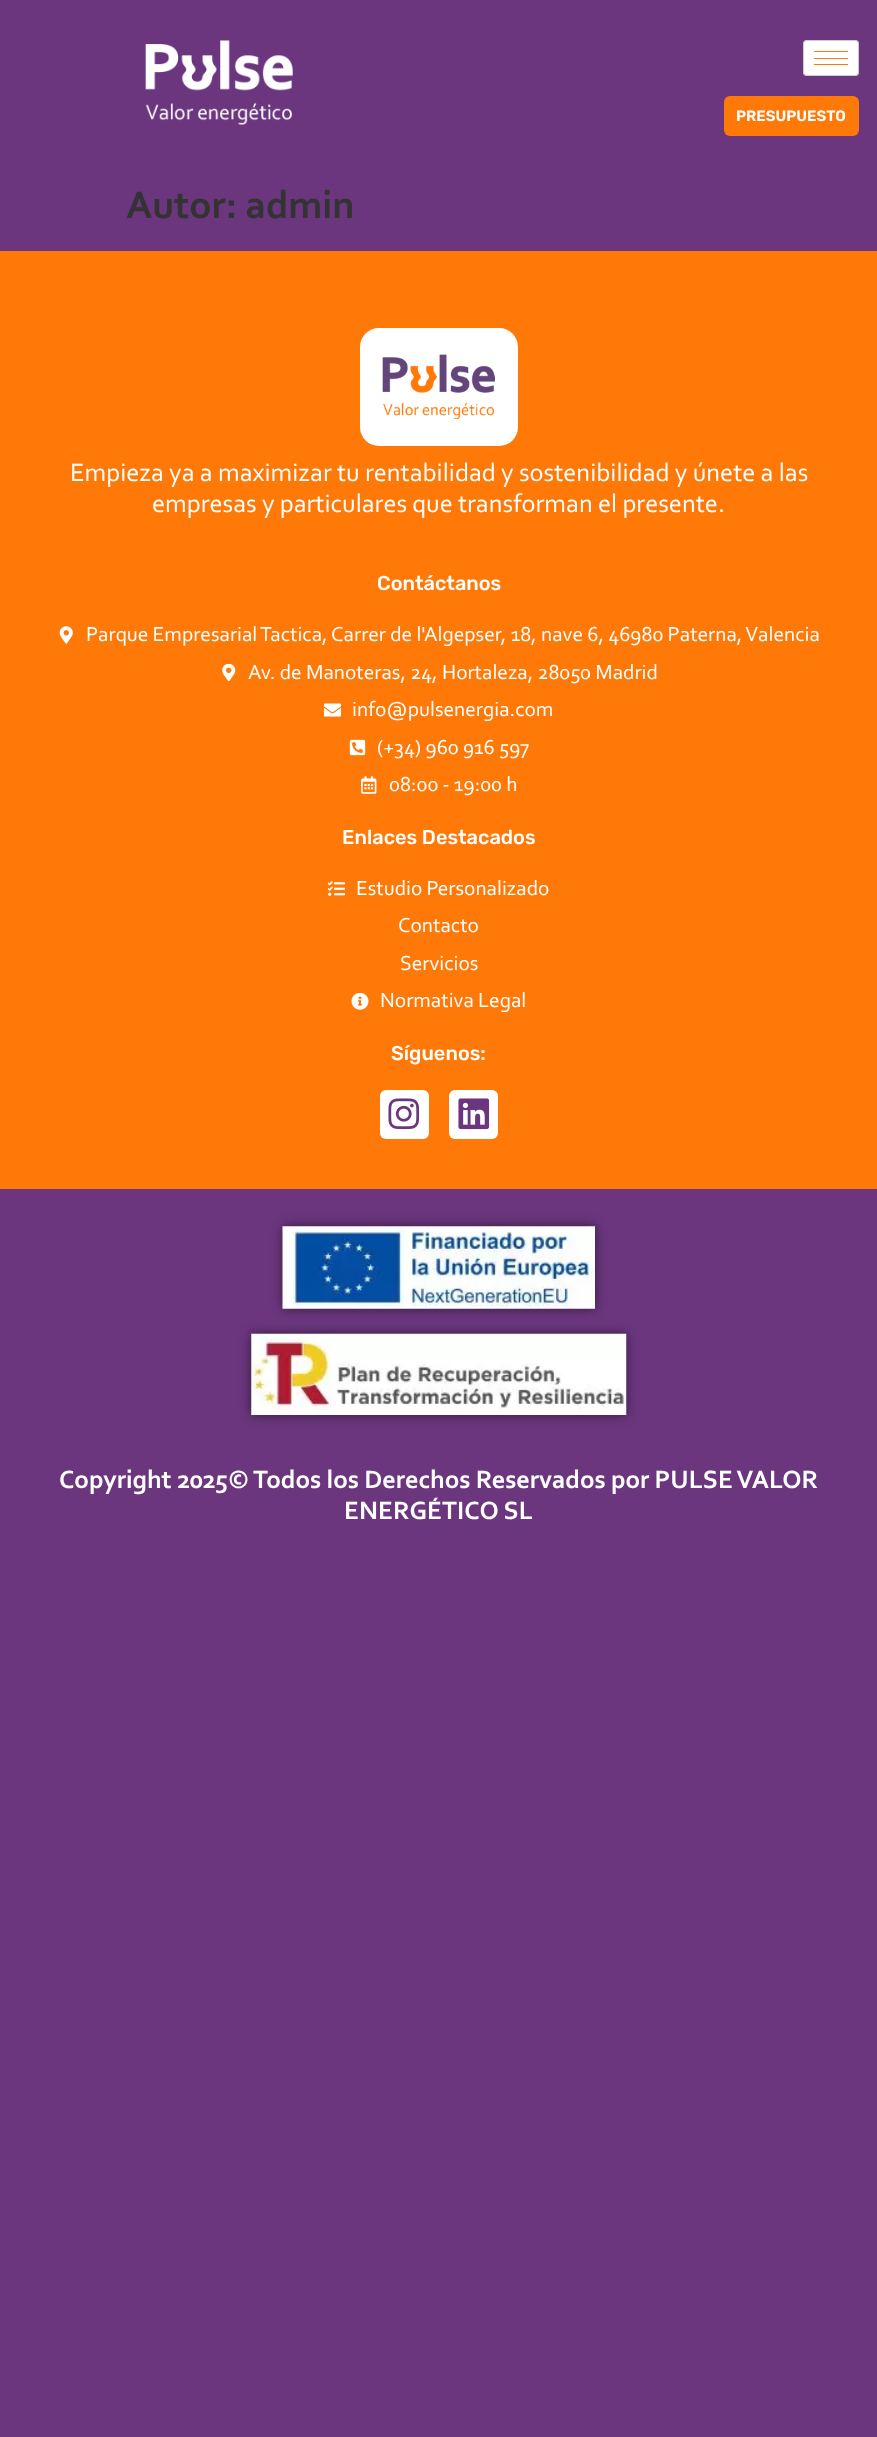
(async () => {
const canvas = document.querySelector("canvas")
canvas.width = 877
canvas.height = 2437
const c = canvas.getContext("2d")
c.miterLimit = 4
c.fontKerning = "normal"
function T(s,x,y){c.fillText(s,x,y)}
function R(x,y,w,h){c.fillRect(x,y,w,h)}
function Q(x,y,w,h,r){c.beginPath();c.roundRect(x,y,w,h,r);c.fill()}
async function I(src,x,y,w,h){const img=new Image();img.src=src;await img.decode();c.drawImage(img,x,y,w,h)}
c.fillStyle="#6b367e"
R(0,0,877,2437)
await I("1.png",145,40,148,85)
c.fillStyle="#fff"
Q(803,40,56,36,4)
c.beginPath()
c.roundRect(803.5,40.5,55,35,3.5)
c.strokeStyle="#00000033"
c.stroke()
c.fillStyle="#ff7908"
R(814,51,34,1)
R(814,58,34,1)
R(814,64,34,1)
Q(724,96,135,40,6)
c.font="600 15px Rubik"
c.fillStyle="#fff"
T("PRESUPUESTO",736,121)
c.font="bold 40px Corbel"
c.fillStyle="#333"
T("Autor: admin",126,218)
c.fillStyle="#ff7908"
R(0,251,877,938)
c.fillStyle="#fff"
Q(360,328,158,118,19)
await I("2.png",382,354,113,66)
c.font="26.25px Corbel"
T("Empieza ya a maximizar tu rentabilidad y sostenibilidad y únete a las",70,481)
T("empresas y particulares que transforman el presente.",152,512)
c.font="500 20px Rubik"
T("Contáctanos",377,590)
await I("3.png",59,626,14,18)
c.font="21.25px Corbel"
T("Parque Empresarial Tactica, Carrer de l'Algepser, 18, nave 6, 46980 Paterna, Valencia",86,641)
await I("4.png",222,664,14,17)
T("Av. de Manoteras, 24, Hortaleza, 28050 Madrid",248,679)
await I("5.png",324,703,17,14)
T("info@pulsenergia.com",352,716)
await I("6.png",349,739,17,17)
T("(+34) 960 916 597",377,754)
await I("7.png",361,776,16,18)
T("08:00 - 19:00 h",389,791)
c.font="500 20px Rubik"
T("Enlaces Destacados",342,844)
await I("8.png",328,881,17,15)
c.font="21.25px Corbel"
T("Estudio Personalizado",356,895)
T("Contacto",398,932)
T("Servicios",400,970)
await I("9.png",351,993,18,17)
T("Normativa Legal",380,1007)
c.font="500 20px Rubik"
T("Síguenos:",391,1060)
Q(380,1090,49,49,6)
await I("10.png",388,1098,32,32)
Q(449,1090,49,49,6)
await I("11.png",458,1098,32,32)
c.fillStyle="#00000080"
c.filter="blur(6px)"
c.beginPath()
c.rect(283,1226,312,83)
c.fill()
c.filter="none"
await I("12.png",282,1226,313,83)
c.filter="blur(6px)"
c.beginPath()
c.rect(251,1334,375,81)
c.fill()
c.filter="none"
await I("13.png",251,1333,376,82)
c.font="bold 26.25px Corbel"
c.fillStyle="#fff"
T("Copyright 2025© Todos los Derechos Reservados por PULSE VALOR",59,1488)
T("ENERGÉTICO SL",344,1519)
})()
